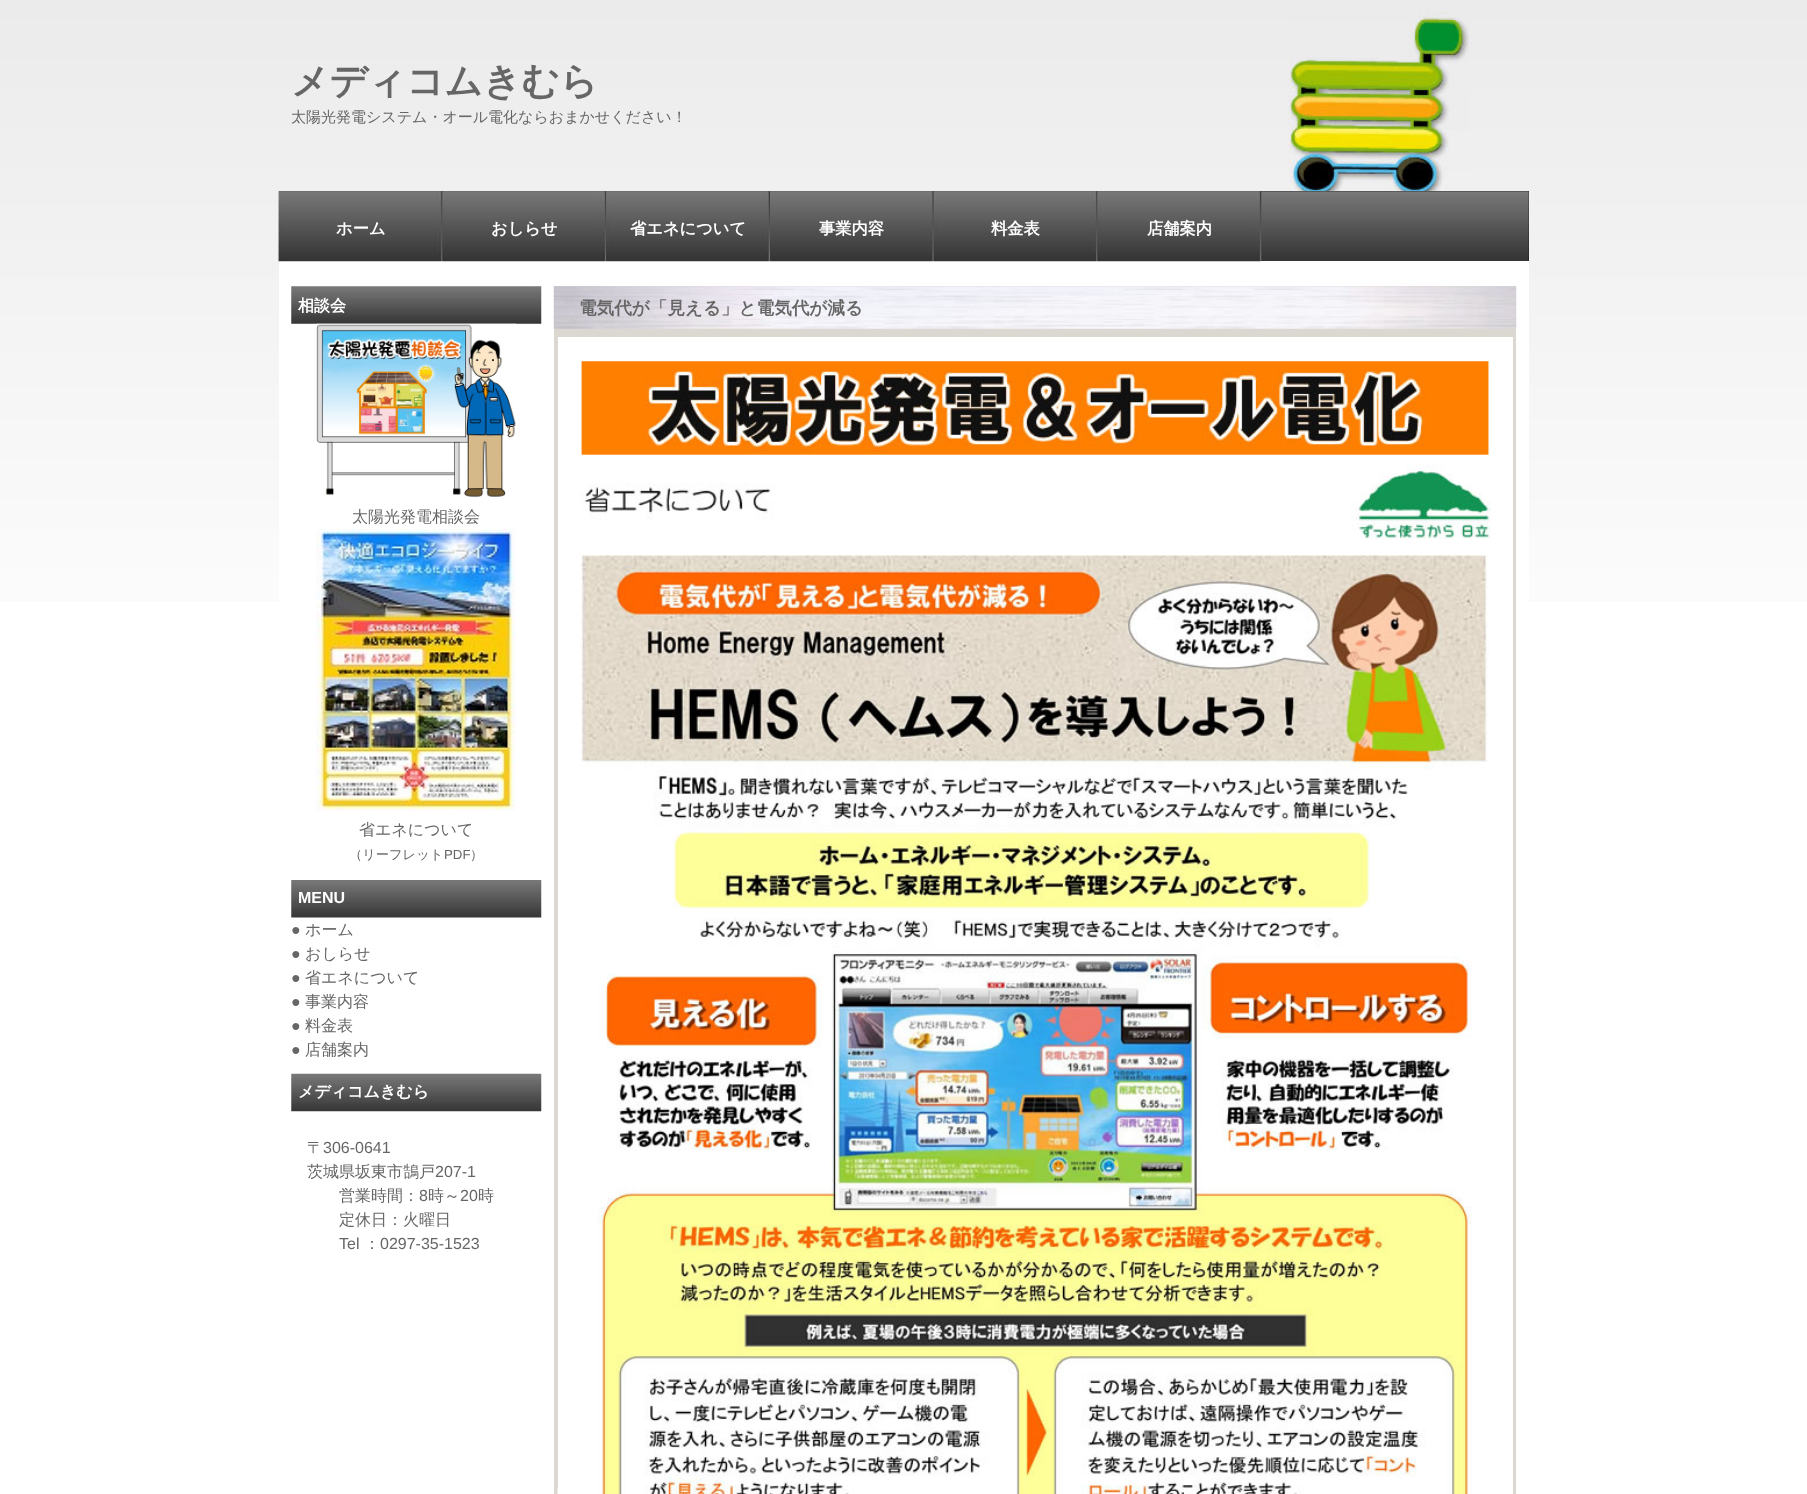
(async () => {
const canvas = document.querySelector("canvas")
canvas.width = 1807
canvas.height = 1494
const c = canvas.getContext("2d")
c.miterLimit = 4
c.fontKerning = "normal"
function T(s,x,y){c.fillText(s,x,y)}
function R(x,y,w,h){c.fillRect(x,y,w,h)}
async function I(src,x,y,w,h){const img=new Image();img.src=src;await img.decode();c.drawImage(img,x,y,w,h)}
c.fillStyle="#fff"
R(0,0,1807,1494)
await I("1.png",0,0,1807,602)
await I("2.png",1288,10,181,181)
c.font="bold 37.5px WenQuanYi Zen Hei"
c.fillStyle="#666"
T("メディコムきむら",291,94)
c.font="500 15px WenQuanYi Zen Hei"
T("太陽光発電システム・オール電化ならおまかせください！",291,122)
c.fillStyle="#000"
R(279,191,1250,70)
await I("3.png",278,191,1251,71)
c.fillStyle="#fff"
R(279,261,1250,341)
await I("4.png",278,191,165,71)
c.font="bold 16.25px WenQuanYi Zen Hei"
T("ホーム",336,234)
await I("5.png",442,191,165,71)
T("おしらせ",491,234)
await I("6.png",606,191,164,71)
T("省エネについて",630,234)
await I("7.png",770,191,164,71)
T("事業内容",819,234)
await I("8.png",933,191,165,71)
T("料金表",991,234)
await I("9.png",1097,191,165,71)
T("店舗案内",1147,234)
await I("10.png",291,286,251,38)
c.font="bold 16px WenQuanYi Zen Hei"
T("相談会",298,311)
await I("11.png",316,323,201,175)
c.font="500 16px WenQuanYi Zen Hei"
c.fillStyle="#666"
T("太陽光発電相談会",352,522)
await I("12.png",316,529,200,282)
T("省エネについて",359,835)
c.font="500 13.25px WenQuanYi Zen Hei"
T("（リーフレット",349,859)
c.font="13.25px Liberation Sans"
T("PDF",444,859)
c.font="500 13.25px WenQuanYi Zen Hei"
T("）",470,859)
await I("13.png",291,880,251,38)
c.font="bold 16px Liberation Sans"
c.fillStyle="#fff"
T("MENU",298,903)
c.font="16px Liberation Sans"
c.fillStyle="#666"
T("●",291,935)
c.font="500 16px WenQuanYi Zen Hei"
T("ホーム",305,935)
c.font="16px Liberation Sans"
T("●",291,959)
c.font="500 16px WenQuanYi Zen Hei"
T("おしらせ",305,959)
c.font="16px Liberation Sans"
T("●",291,983)
c.font="500 16px WenQuanYi Zen Hei"
T("省エネについて",305,983)
c.font="16px Liberation Sans"
T("●",291,1007)
c.font="500 16px WenQuanYi Zen Hei"
T("事業内容",305,1007)
c.font="16px Liberation Sans"
T("●",291,1031)
c.font="500 16px WenQuanYi Zen Hei"
T("料金表",305,1031)
c.font="16px Liberation Sans"
T("●",291,1055)
c.font="500 16px WenQuanYi Zen Hei"
T("店舗案内",305,1055)
await I("14.png",291,1073,251,39)
c.font="bold 16px WenQuanYi Zen Hei"
c.fillStyle="#fff"
T("メディコムきむら",298,1097)
c.font="500 16px WenQuanYi Zen Hei"
c.fillStyle="#666"
T("〒",307,1153)
c.font="16px Liberation Sans"
T("306-0641",323,1153)
c.font="500 16px WenQuanYi Zen Hei"
T("茨城県坂東市鵠戸",307,1177)
c.font="16px Liberation Sans"
T("207-1",435,1177)
c.font="500 16px WenQuanYi Zen Hei"
T("営業時間：",339,1201)
c.font="16px Liberation Sans"
T("8",419,1201)
c.font="500 16px WenQuanYi Zen Hei"
T("時～",428,1201)
c.font="16px Liberation Sans"
T("20",460,1201)
c.font="500 16px WenQuanYi Zen Hei"
T("時",478,1201)
T("定休日：火曜日",339,1225)
c.font="16px Liberation Sans"
T("Tel",339,1249)
c.font="500 16px WenQuanYi Zen Hei"
T("：",364,1249)
c.font="16px Liberation Sans"
T("0297-35-1523",380,1249)
c.fillStyle="#dad8d1"
R(554,286,962,1208)
await I("15.png",553,286,964,43)
c.font="bold 17.6px WenQuanYi Zen Hei"
c.fillStyle="#666"
T("電気代が「見える」と電気代が減る",579,314)
c.fillStyle="#fff"
R(558,337,955,1157)
await I("16.png",557,1488,1,6)
await I("17.png",580,361,911,178)
await I("18.png",580,555,909,939)
})()
